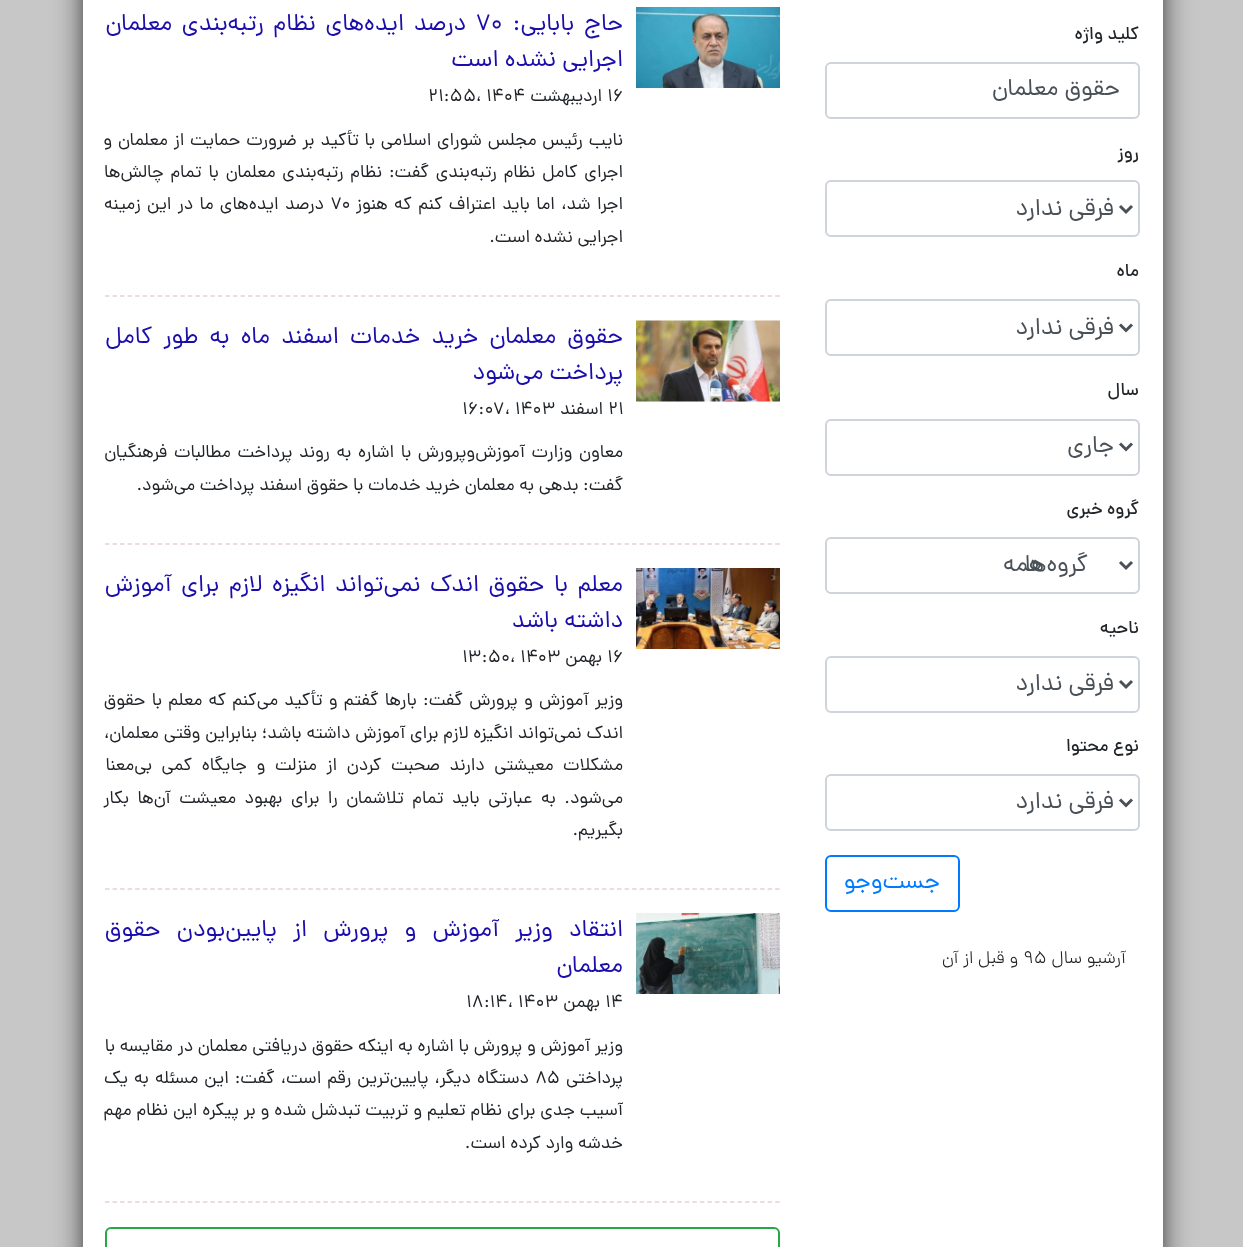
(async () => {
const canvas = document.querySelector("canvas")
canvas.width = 1243
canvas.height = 1247
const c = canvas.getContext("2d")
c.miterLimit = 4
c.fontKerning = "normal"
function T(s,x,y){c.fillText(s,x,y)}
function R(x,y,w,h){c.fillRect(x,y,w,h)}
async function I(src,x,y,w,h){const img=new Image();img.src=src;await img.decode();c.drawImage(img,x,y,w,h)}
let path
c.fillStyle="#c7c7c7"
R(0,0,1243,1247)
c.fillStyle="#00000099"
c.filter="blur(15px)"
c.beginPath()
c.rect(83,-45,1080,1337)
c.fill()
c.filter="none"
c.fillStyle="#00000033"
c.filter="blur(6px)"
c.beginPath()
c.rect(83,-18,1080,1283)
c.fill()
c.filter="none"
c.fillStyle="#fff"
R(83,0,1080,1247)
c.direction="rtl"
c.font="500 18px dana"
c.fillStyle="#212529"
T("کلید واژه",1139,39)
c.beginPath()
c.roundRect(826,63,313,55,5)
c.strokeStyle="#ced4da"
c.lineWidth=2
c.stroke()
c.font="24px dana"
c.fillStyle="#495057"
T("حقوق معلمان",1120,95)
c.font="500 18px dana"
c.fillStyle="#212529"
T("روز",1139,158)
c.beginPath()
c.roundRect(826,181,313,55,5)
c.stroke()
path = new Path2D("M1120 206l6 6l6-6")
c.strokeStyle="#495057"
c.lineWidth=3
c.stroke(path)
c.font="24px dana"
c.fillStyle="#495057"
T("فرقی ندارد",1114,215)
c.font="500 18px dana"
c.fillStyle="#212529"
T("ماه",1139,276)
c.beginPath()
c.roundRect(826,300,313,55,5)
c.strokeStyle="#ced4da"
c.lineWidth=2
c.stroke()
path = new Path2D("M1120 324.5l6 6l6-6")
c.strokeStyle="#495057"
c.lineWidth=3
c.stroke(path)
c.font="24px dana"
c.fillStyle="#495057"
T("فرقی ندارد",1114,334)
c.font="500 18px dana"
c.fillStyle="#212529"
T("سال",1139,395)
c.beginPath()
c.roundRect(826,420,313,55,5)
c.strokeStyle="#ced4da"
c.lineWidth=2
c.stroke()
path = new Path2D("M1120 443.5l6 6l6-6")
c.strokeStyle="#495057"
c.lineWidth=3
c.stroke(path)
c.font="24px dana"
c.fillStyle="#495057"
T("جاری",1114,452)
c.font="500 18px dana"
c.fillStyle="#212529"
T("گروه خبری",1139,514)
c.beginPath()
c.roundRect(826,538,313,55,5)
c.strokeStyle="#ced4da"
c.lineWidth=2
c.stroke()
path = new Path2D("M1120 562l6 6l6-6")
c.strokeStyle="#495057"
c.lineWidth=3
c.stroke(path)
c.font="24px dana"
c.fillStyle="#495057"
T("همه",1044,571)
T("گروه‌ها",1088,571)
c.font="500 18px dana"
c.fillStyle="#212529"
T("ناحیه",1139,633)
c.beginPath()
c.roundRect(826,657,313,55,5)
c.strokeStyle="#ced4da"
c.lineWidth=2
c.stroke()
path = new Path2D("M1120 681l6 6l6-6")
c.strokeStyle="#495057"
c.lineWidth=3
c.stroke(path)
c.font="24px dana"
c.fillStyle="#495057"
T("فرقی ندارد",1114,690)
c.font="500 18px dana"
c.fillStyle="#212529"
T("نوع محتوا",1139,751)
c.beginPath()
c.roundRect(826,775,313,55,5)
c.strokeStyle="#ced4da"
c.lineWidth=2
c.stroke()
path = new Path2D("M1120 799.5l6 6l6-6")
c.strokeStyle="#495057"
c.lineWidth=3
c.stroke(path)
c.font="24px dana"
c.fillStyle="#495057"
T("فرقی ندارد",1114,808)
c.beginPath()
c.roundRect(826,856,133,55,5)
c.strokeStyle="#007bff"
c.lineWidth=2
c.stroke()
c.fillStyle="#007bff"
T("جست‌و‌جو",940,888)
c.font="300 18px dana"
c.fillStyle="#222"
T("آرشیو سال",1126,963)
c.direction="ltr"
T("۹۵",1023,963)
c.direction="rtl"
T("و قبل از آن",1018,963)
path = new Path2D("M105 296h675")
c.strokeStyle="#eacfd2"
c.lineWidth=1.5
c.setLineDash([4.5,3.03])
c.stroke(path)
await I("1.png",636,7,144,81)
c.wordSpacing="3.5px"
c.font="24.1px dana"
c.fillStyle="#1a0dab"
T("حاج بابایی:",623,30)
c.wordSpacing="0px"
c.direction="ltr"
T("۷۰",475,30)
c.wordSpacing="3.5px"
c.direction="rtl"
T("درصد ایده‌های نظام رتبه‌بندی معلمان",466,30)
c.wordSpacing="0px"
T("اجرایی نشده است",623,66)
c.direction="ltr"
c.font="18px dana"
c.fillStyle="#212529"
T("۱۶",607,101)
c.direction="rtl"
T("اردیبهشت",602,101)
c.direction="ltr"
T("۲۱:۵۵، ۱۴۰۴",428,101)
c.wordSpacing="1.25px"
c.direction="rtl"
T("نایب رئیس مجلس شورای اسلامی با تأکید بر ضرورت حمایت از معلمان و",623,145)
c.wordSpacing="2.25px"
T("اجرای کامل نظام رتبه‌بندی گفت: نظام رتبه‌بندی معلمان با تمام چالش‌ها",623,177)
c.wordSpacing="1.75px"
T("اجرا شد، اما باید اعتراف کنم که هنوز",623,209)
c.wordSpacing="0px"
c.direction="ltr"
T("۷۰",330,209)
c.wordSpacing="1.75px"
c.direction="rtl"
T("درصد ایده‌های ما در این زمینه",324,209)
c.wordSpacing="0px"
T("اجرایی نشده است.",623,242)
path = new Path2D("M105 544h675")
c.stroke(path)
await I("2.png",636,320,144,82)
c.wordSpacing="5px"
c.font="24.1px dana"
c.fillStyle="#1a0dab"
T("حقوق معلمان خرید خدمات اسفند ماه به طور کامل",623,343)
c.wordSpacing="0px"
T("پرداخت می",623,379)
T("شود",515,379)
c.direction="ltr"
c.font="18px dana"
c.fillStyle="#212529"
T("۲۱",608,414)
c.direction="rtl"
T("اسفند",603,414)
c.direction="ltr"
T("۱۶:۰۷، ۱۴۰۳",462,414)
c.wordSpacing="2px"
c.direction="rtl"
T("معاون وزارت آموزش‌وپرورش با اشاره به روند پرداخت مطالبات فرهنگیان",623,457)
c.wordSpacing="0px"
T("گفت: بدهی به معلمان خرید خدمات با حقوق اسفند پرداخت می‌شود.",623,490)
path = new Path2D("M105 889h675")
c.stroke(path)
await I("3.png",636,568,144,81)
c.wordSpacing="3.5px"
c.font="24.1px dana"
c.fillStyle="#1a0dab"
T("معلم با حقوق اندک نمی‌تواند انگیزه لازم برای آموزش",623,591)
c.wordSpacing="0px"
T("داشته باشد",623,627)
c.direction="ltr"
c.font="18px dana"
c.fillStyle="#212529"
T("۱۶",607,662)
c.direction="rtl"
T("بهمن",602,662)
c.direction="ltr"
T("۱۳:۵۰، ۱۴۰۳",462,662)
c.wordSpacing="1.6px"
c.direction="rtl"
T("وزیر آموزش و پرورش گفت: بارها گفتم و تأکید می‌کنم که معلم با حقوق",623,705)
c.wordSpacing="0.25px"
T("اندک نمی‌تواند انگیزه لازم برای آموزش داشته باشد؛ بنابراین وقتی معلمان،",623,738)
c.wordSpacing="5px"
T("مشکلات معیشتی دارند صحبت کردن از منزلت و جایگاه کمی بی‌معنا",623,770)
c.wordSpacing="3.9px"
T("می‌شود. به عبارتی باید تمام تلاشمان را برای بهبود معیشت آن‌ها بکار",623,803)
c.wordSpacing="0px"
T("بگیریم.",623,835)
path = new Path2D("M105 1202h675")
c.stroke(path)
await I("4.png",636,913,144,81)
c.wordSpacing="10px"
c.font="24.1px dana"
c.fillStyle="#1a0dab"
T("انتقاد وزیر آموزش و پرورش از پایین‌بودن حقوق",623,936)
c.wordSpacing="0px"
T("معلمان",623,972)
c.direction="ltr"
c.font="18px dana"
c.fillStyle="#212529"
T("۱۴",605,1007)
c.direction="rtl"
T("بهمن",600,1007)
c.direction="ltr"
T("۱۸:۱۴، ۱۴۰۳",466,1007)
c.wordSpacing="0.1px"
c.direction="rtl"
T("وزیر آموزش و پرورش با اشاره به اینکه حقوق دریافتی معلمان در مقایسه با",623,1051)
c.wordSpacing="0px"
T("پرداختی",623,1083)
c.direction="ltr"
T("۸۵",535,1083)
c.wordSpacing="1.4px"
c.direction="rtl"
T("دستگاه دیگر، پایین‌ترین رقم است، گفت: این مسئله به یک",529,1083)
c.wordSpacing="0.25px"
T("آسیب جدی برای نظام تعلیم و تربیت تبدشل شده و بر پیکره این نظام مهم",623,1115)
c.wordSpacing="0px"
T("خدشه وارد کرده است.",623,1148)
c.beginPath()
c.roundRect(106,1228,673,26,5)
c.strokeStyle="#28a745"
c.lineWidth=2
c.setLineDash([])
c.stroke()
})()
